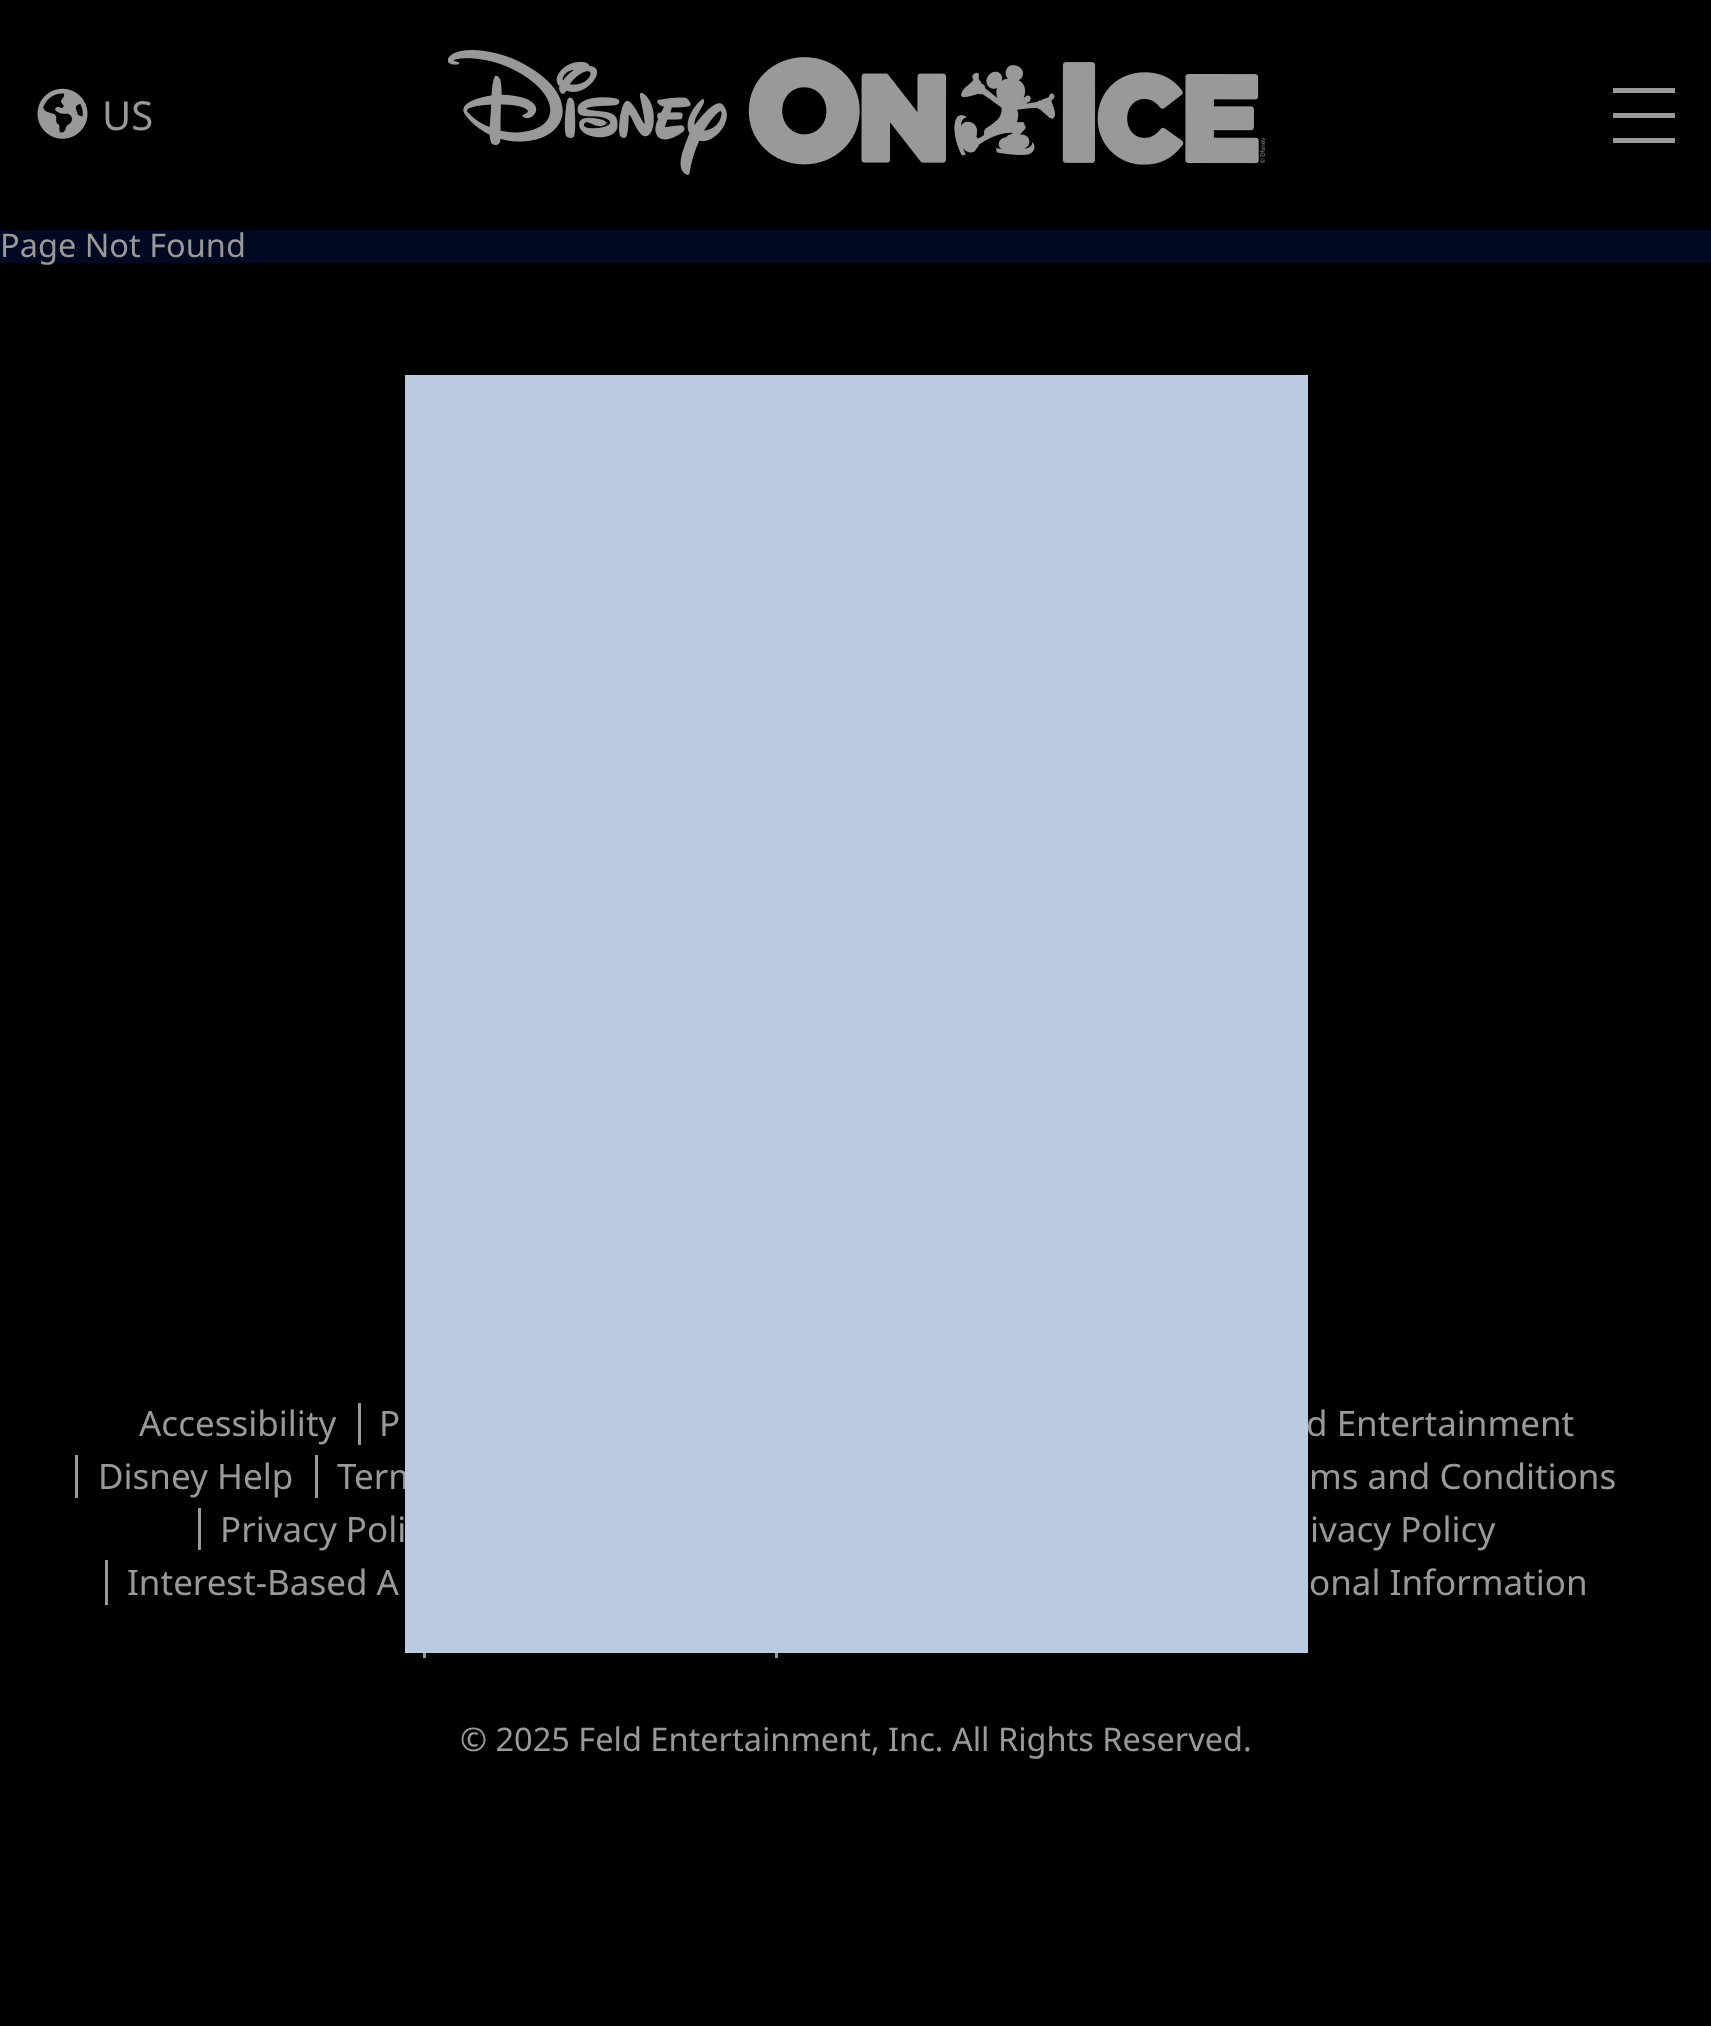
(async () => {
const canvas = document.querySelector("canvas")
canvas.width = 1711
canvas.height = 2026
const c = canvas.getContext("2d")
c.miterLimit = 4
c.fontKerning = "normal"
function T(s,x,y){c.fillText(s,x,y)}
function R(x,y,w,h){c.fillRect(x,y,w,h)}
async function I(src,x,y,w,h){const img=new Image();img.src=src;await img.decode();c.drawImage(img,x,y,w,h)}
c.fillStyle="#000"
R(0,0,1711,2026)
await I("1.png",37,88,51,51)
c.font="40px Noto Sans"
c.fillStyle="#999"
T("US",102,130)
await I("2.png",448,50,817,125)
R(1613,138,62,5)
R(1613,88,62,5)
R(1613,113,62,5)
c.fillStyle="#010821"
R(0,230,1711,33)
c.font="32.5px Noto Sans"
c.fillStyle="#999"
T("Page Not Found",0,257)
c.font="35px Noto Sans"
T("d Entertainment",1306,1436)
T("Term",337,1489)
c.fillStyle="#bacae1"
R(405,375,903,1278)
c.fillStyle="#999"
T("Accessibility",139,1436)
R(358,1403,3,42)
T("P",379,1436)
R(75,1455,3,43)
T("Disney Help",98,1489)
R(315,1455,3,43)
T("ms and Conditions",1309,1489)
R(198,1508,3,42)
T("Privacy Poli",220,1542)
T("ivacy Policy",1310,1542)
R(105,1560,3,45)
T("Interest-Based A",127,1595)
T("onal Information",1309,1595)
R(423,1653,3,5)
R(775,1653,3,5)
c.font="32.5px Noto Sans"
T("© 2025 Feld Entertainment, Inc. All Rights Reserved.",460,1751)
})()
